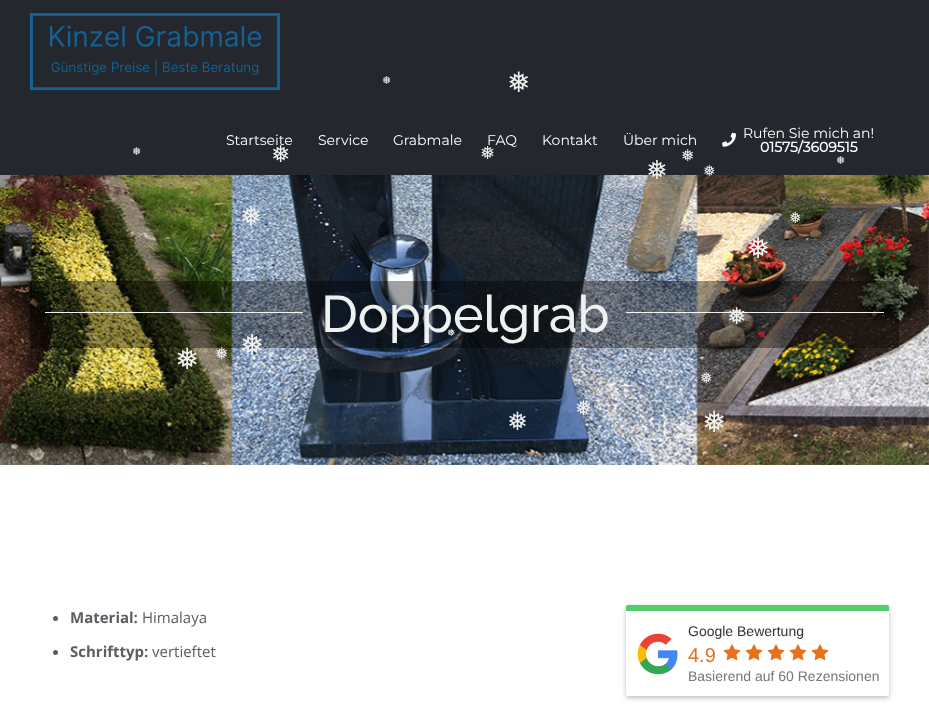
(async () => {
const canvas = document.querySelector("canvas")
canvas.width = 929
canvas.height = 726
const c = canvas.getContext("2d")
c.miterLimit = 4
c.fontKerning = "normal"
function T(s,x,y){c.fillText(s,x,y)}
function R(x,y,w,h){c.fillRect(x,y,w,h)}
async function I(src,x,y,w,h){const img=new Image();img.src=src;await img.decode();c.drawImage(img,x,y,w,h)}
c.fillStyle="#fff"
R(0,0,929,726)
c.fillStyle="#24272d"
R(0,0,929,175)
c.font="11px DejaVu Sans"
c.fillStyle="#eff0f0"
T("❅",382,84)
c.font="28px DejaVu Sans"
T("❅",507,92)
c.font="11px DejaVu Sans"
T("❅",132,155)
c.font="23px DejaVu Sans"
T("❅",271,162)
c.font="18px DejaVu Sans"
T("❅",480,159)
await I("3.png",0,175,929,290)
c.font="26px DejaVu Sans"
T("❅",646,179)
c.font="16px DejaVu Sans"
T("❅",681,161)
c.font="15px DejaVu Sans"
T("❅",703,176)
c.font="11px DejaVu Sans"
T("❅",836,164)
c.font="26px DejaVu Sans"
T("❅",240,225)
c.font="15px DejaVu Sans"
T("❅",789,223)
c.font="29px DejaVu Sans"
T("❅",746,258)
c.fillStyle="#0000005e"
R(30,281,869,67)
c.fillStyle="#ffffffed"
R(626,312,258,1)
c.font="23px DejaVu Sans"
c.fillStyle="#eff0f0"
T("❅",727,324)
c.font="100 51.5px Raleway"
T("Doppelgrab",321,332)
c.font="10px DejaVu Sans"
T("❅",447,336)
c.font="29px DejaVu Sans"
T("❅",240,355)
T("❅",175,369)
c.font="16px DejaVu Sans"
T("❅",215,359)
c.font="15px DejaVu Sans"
T("❅",700,383)
c.font="14px DejaVu Sans"
T("❅",840,400)
c.font="20px DejaVu Sans"
T("❅",575,415)
c.font="25px DejaVu Sans"
T("❅",507,430)
c.font="29px DejaVu Sans"
T("❅",702,432)
await I("1.png",30,13,250,78)
c.font="100 14px Montserrat"
c.fillStyle="#fff"
T("Startseite",226,145)
T("Service",318,145)
T("Grabmale",393,145)
T("FAQ",487,145)
T("Kontakt",542,145)
T("Über mich",623,145)
await I("2.png",722,132,14,15)
T("Rufen Sie mich an!",743,138)
c.font="bold 14px Montserrat"
T("01575/3609515",760,152)
c.fillStyle="#ffffffed"
R(45,312,258,1)
c.fillStyle="#5a5d62"
c.beginPath()
c.arc(55.5,618.5,2.5,0,7)
c.fill()
c.font="bold 15px Open Sans"
T("Material:",70,623)
c.font="15px Open Sans"
T("Himalaya",142,623)
c.beginPath()
c.arc(55.5,652.5,2.5,0,7)
c.fill()
c.font="bold 15px Open Sans"
T("Schrifttyp:",70,657)
c.font="15px Open Sans"
T("vertieftet",152,657)
c.fillStyle="#00000042"
c.filter="blur(2.5px)"
c.beginPath()
c.roundRect(626,607,263,91,2)
c.fill()
c.filter="none"
c.fillStyle="#4fce6a"
c.beginPath()
c.roundRect(626,605,263,6,[2,2,0,0])
c.fill()
c.fillStyle="#fff"
c.beginPath()
c.roundRect(626,611,263,85,[0,0,2,2])
c.fill()
await I("4.png",637,633,41,42)
c.font="14px Liberation Sans"
c.fillStyle="#333"
T("Google Bewertung",688,636)
c.font="20px Liberation Sans"
c.fillStyle="#e7711b"
T("4.9",688,662)
await I("5.png",723,644,18,17)
await I("5.png",745,644,18,17)
await I("5.png",767,644,18,17)
await I("5.png",789,644,18,17)
await I("5.png",811,644,18,17)
c.font="14px Liberation Sans"
c.fillStyle="#777"
T("Basierend auf 60 Rezensionen",688,681)
})()
